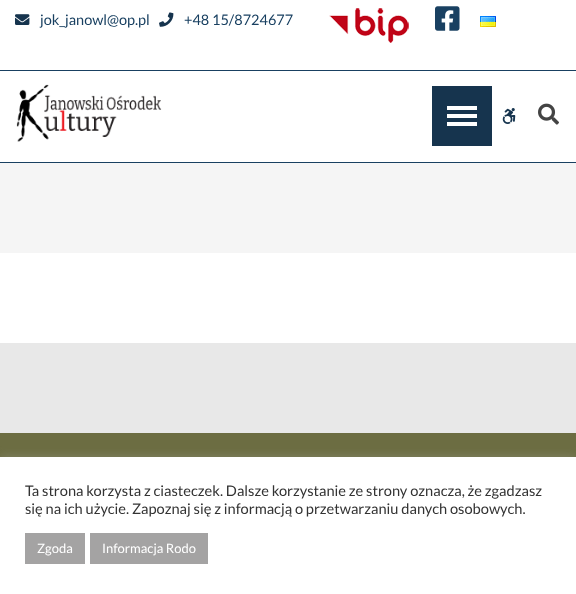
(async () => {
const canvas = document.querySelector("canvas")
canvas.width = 576
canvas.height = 594
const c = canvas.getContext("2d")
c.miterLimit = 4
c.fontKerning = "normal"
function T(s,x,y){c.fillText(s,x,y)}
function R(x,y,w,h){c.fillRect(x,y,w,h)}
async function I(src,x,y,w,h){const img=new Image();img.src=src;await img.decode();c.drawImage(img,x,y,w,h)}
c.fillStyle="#6c6d42"
R(0,0,576,594)
c.fillStyle="#194061"
R(0,162,576,1)
c.fillStyle="#fff"
R(0,0,576,70)
c.fillStyle="#194061"
R(0,70,576,1)
await I("1.png",15,14,15,11)
c.font="14.5px Lato"
T("jok_janowl@op.pl",40,25)
await I("2.png",159,12,15,15)
T("+48 15/8724677",184,25)
await I("3.png",329,8,80,35)
await I("4.png",435,6,25,25)
await I("5.png",480,16,16,11)
c.fillStyle="#fff"
R(0,71,576,91)
await I("6.png",16,84,146,58)
c.fillStyle="#16344e"
R(432,86,60,60)
c.fillStyle="#fff"
R(447,106,30,4)
R(447,114,30,4)
R(447,122,30,4)
await I("7.png",502,108,14,16)
await I("8.png",538,103,21,22)
c.fillStyle="#f5f5f5"
R(0,163,576,90)
c.fillStyle="#fff"
R(0,253,576,90)
c.fillStyle="#e8e8e8"
R(0,343,576,90)
c.fillStyle="#acabab4d"
c.filter="blur(5px)"
c.beginPath()
c.rect(0,456,576,137)
c.fill()
c.filter="none"
c.fillStyle="#fff"
R(0,457,576,137)
c.font="14.65px Lato"
c.fillStyle="#333"
T("Ta strona korzysta z ciasteczek. Dalsze korzystanie ze strony oznacza, że zgadzasz",25,496)
T("się na ich użycie. Zapoznaj się z informacją o przetwarzaniu danych osobowych.",25,514)
c.fillStyle="#a4a3a3"
R(25,533,60,31)
c.font="13px Lato"
c.fillStyle="#fff"
T("Zgoda",37,553)
c.fillStyle="#a4a3a3"
R(90,533,118,31)
c.fillStyle="#fff"
T("Informacja Rodo",102,553)
})()
